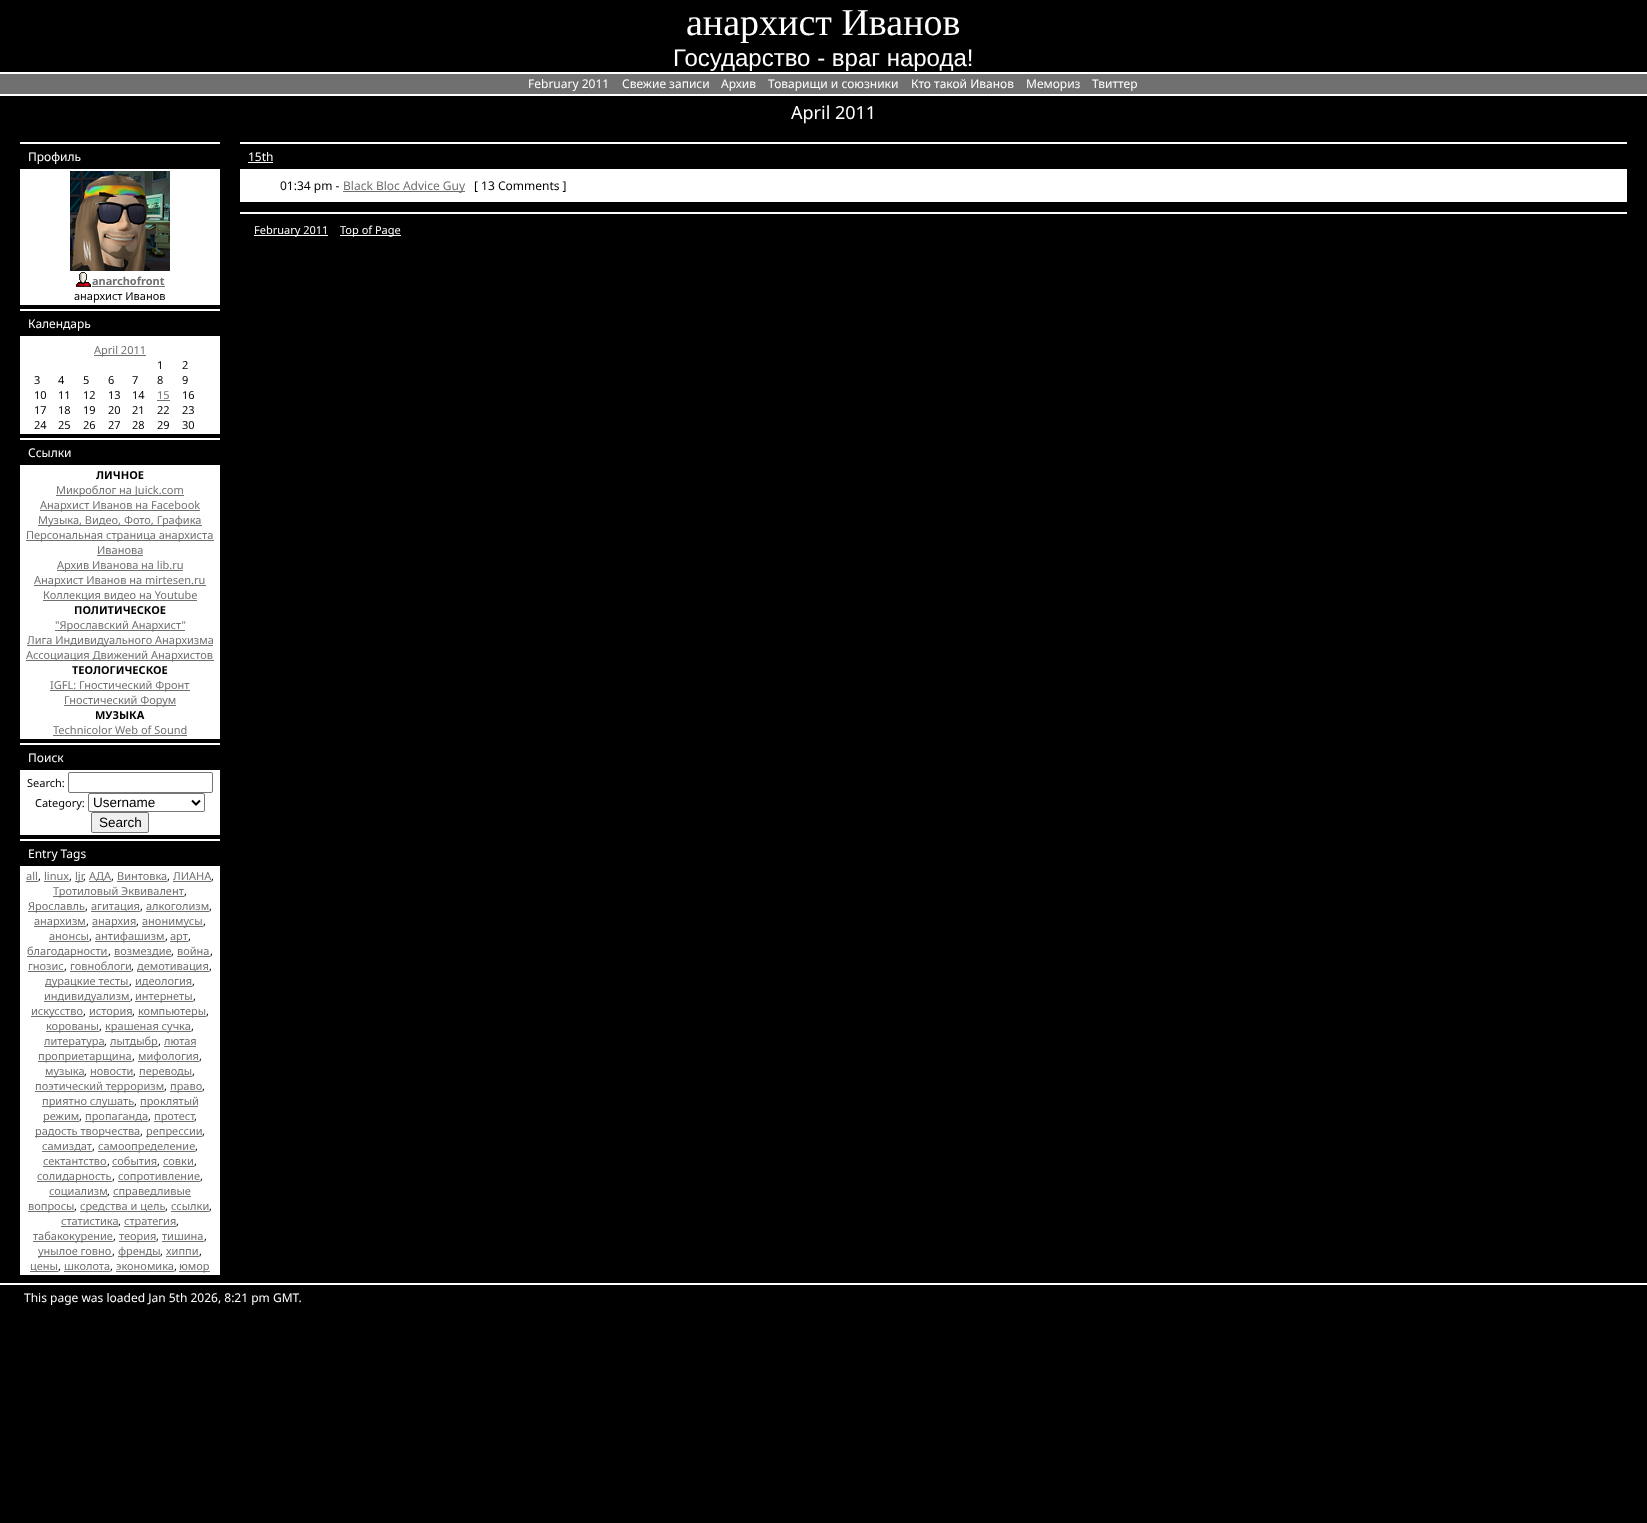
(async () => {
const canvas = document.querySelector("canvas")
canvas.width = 1647
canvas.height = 1523
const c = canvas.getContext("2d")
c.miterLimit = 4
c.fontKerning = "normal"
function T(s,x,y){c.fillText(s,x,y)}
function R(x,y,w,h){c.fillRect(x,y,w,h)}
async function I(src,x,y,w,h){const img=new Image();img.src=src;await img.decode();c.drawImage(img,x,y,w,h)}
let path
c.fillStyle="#000"
R(0,0,1647,1523)
c.font="38px Liberation Serif"
c.fillStyle="#fff"
T("анархист Иванов",686,35)
c.font="24px Liberation Sans"
T("Государство - враг народа!",673,66)
c.fillStyle="#707070"
R(0,74,1647,20)
c.fillStyle="#fff"
R(0,72,1647,2)
c.font="12px Noto Sans"
T("February 2011",528,88)
T("Свежие записи",622,88)
T("Архив",721,88)
T("Товарищи и союзники",768,88)
T("Кто такой Иванов",911,88)
T("Мемориз",1026,88)
T("Твиттер",1092,88)
R(0,94,1647,2)
c.font="18px Noto Sans"
T("April 2011",791,119)
R(20,169,200,136)
R(20,142,200,2)
c.font="12px Noto Sans"
T("Профиль",28,161)
await I("1.png",70,171,100,100)
await I("2.png",76,272,15,15)
c.font="bold 11px Noto Sans"
c.fillStyle="#707070"
T("anarchofront",92,285)
R(92,286,73,1)
c.font="11px Noto Sans"
c.fillStyle="#000"
T("анархист Иванов",74,300)
c.fillStyle="#fff"
R(20,336,200,98)
R(20,309,200,2)
c.font="12px Noto Sans"
T("Календарь",28,328)
c.fillStyle="#707070"
R(94,355,52,1)
c.font="11px Noto Sans"
T("April 2011",94,354)
c.fillStyle="#000"
T("1",157,369)
T("2",182,369)
T("3",34,384)
T("4",58,384)
T("5",83,384)
T("6",108,384)
T("7",132,384)
T("8",157,384)
T("9",182,384)
T("10",34,399)
T("11",58,399)
T("12",83,399)
T("13",108,399)
T("14",132,399)
c.fillStyle="#707070"
T("15",157,399)
R(157,400,13,1)
c.fillStyle="#000"
T("16",182,399)
T("17",34,414)
T("18",58,414)
T("19",83,414)
T("20",108,414)
T("21",132,414)
T("22",157,414)
T("23",182,414)
T("24",34,429)
T("25",58,429)
T("26",83,429)
T("27",108,429)
T("28",132,429)
T("29",157,429)
T("30",182,429)
c.fillStyle="#fff"
R(20,465,200,274)
R(20,438,200,2)
c.font="12px Noto Sans"
T("Ссылки",28,457)
c.font="bold 11px Noto Sans"
c.fillStyle="#000"
T("ЛИЧНОЕ",96,479)
c.fillStyle="#707070"
R(56,495,128,1)
c.font="11px Noto Sans"
T("Микроблог на Juick.com",56,494)
R(40,510,160,1)
T("Анархист Иванов на Facebook",40,509)
R(38,525,164,1)
T("Музыка, Видео, Фото, Графика",38,524)
R(26,540,188,1)
T("Персональная страница анархиста",26,539)
T("Иванова",97,554)
R(97,555,46,1)
R(57,570,126,1)
T("Архив Иванова на lib.ru",57,569)
R(34,585,172,1)
T("Анархист Иванов на mirtesen.ru",34,584)
R(43,600,154,1)
T("Коллекция видео на Youtube",43,599)
c.font="bold 11px Noto Sans"
c.fillStyle="#000"
T("ПОЛИТИЧЕСКОЕ",74,614)
c.fillStyle="#707070"
R(55,630,130,1)
c.font="11px Noto Sans"
T("\"Ярославский Анархист\"",55,629)
R(27,645,186,1)
T("Лига Индивидуального Анархизма",27,644)
R(26,660,188,1)
T("Ассоциация Движений Анархистов",26,659)
c.font="bold 11px Noto Sans"
c.fillStyle="#000"
T("ТЕОЛОГИЧЕСКОЕ",72,674)
c.fillStyle="#707070"
R(50,690,140,1)
c.font="11px Noto Sans"
T("IGFL: Гностический Фронт",50,689)
R(64,705,112,1)
T("Гностический Форум",64,704)
c.font="bold 11px Noto Sans"
c.fillStyle="#000"
T("МУЗЫКА",95,719)
c.font="11px Noto Sans"
c.fillStyle="#707070"
T("Technicolor Web of Sound",53,734)
R(53,735,134,1)
c.fillStyle="#fff"
R(20,770,200,65)
R(20,743,200,2)
c.font="12px Noto Sans"
T("Поиск",28,762)
c.font="11px Noto Sans"
c.fillStyle="#000"
T("Search:",27,787)
c.beginPath()
c.roundRect(68.5,772.5,144,20,1.5)
c.strokeStyle="#767676"
c.stroke()
T("Category:",35,807)
c.beginPath()
c.roundRect(88.5,793.5,116,18,1.5)
c.stroke()
path = new Path2D("M192 800.5l4 4l4-4")
c.strokeStyle="#000"
c.lineWidth=2
c.stroke(path)
c.font="13.5px Liberation Sans"
T("Username",93,807)
c.fillStyle="#efefef"
c.beginPath()
c.roundRect(91.5,812.5,57,20,1.5)
c.fill()
c.strokeStyle="#767676"
c.lineWidth=1
c.stroke()
c.fillStyle="#000"
T("Search",99,827)
c.fillStyle="#fff"
R(20,866,200,409)
R(20,839,200,2)
c.font="12px Noto Sans"
T("Entry Tags",28,858)
c.font="11px Noto Sans"
c.fillStyle="#707070"
T("all",26,880)
R(26,881,12,1)
c.fillStyle="#000"
T(",",38,880)
c.fillStyle="#707070"
T("linux",44,880)
R(44,881,25,1)
c.fillStyle="#000"
T(",",69,880)
c.fillStyle="#707070"
R(75,881,8,1)
T("ljr",75,880)
R(89,881,22,1)
T("АДА",89,880)
T("Винтовка",117,880)
R(117,881,50,1)
T("ЛИАНА",173,880)
R(173,881,38,1)
c.fillStyle="#000"
T(",",83,880)
T(",",111,880)
T(",",167,880)
T(",",211,880)
c.fillStyle="#707070"
R(53,896,131,1)
T("Тротиловый Эквивалент",53,895)
c.fillStyle="#000"
T(",",184,895)
c.fillStyle="#707070"
R(28,911,57,1)
T("Ярославль",28,910)
c.fillStyle="#000"
T(",",85,910)
c.fillStyle="#707070"
R(91,911,49,1)
T("агитация",91,910)
c.fillStyle="#000"
T(",",140,910)
c.fillStyle="#707070"
T("алкоголизм",146,910)
R(146,911,63,1)
c.fillStyle="#000"
T(",",209,910)
c.fillStyle="#707070"
R(34,926,52,1)
T("анархизм",34,925)
c.fillStyle="#000"
T(",",86,925)
c.fillStyle="#707070"
R(92,926,44,1)
T("анархия",92,925)
c.fillStyle="#000"
T(",",136,925)
c.fillStyle="#707070"
R(142,926,61,1)
T("анонимусы",142,925)
c.fillStyle="#000"
T(",",203,925)
c.fillStyle="#707070"
T("анонсы",49,940)
R(49,941,40,1)
c.fillStyle="#000"
T(",",89,940)
c.fillStyle="#707070"
R(95,941,70,1)
T("антифашизм",95,940)
c.fillStyle="#000"
T(",",165,940)
c.fillStyle="#707070"
R(170,941,18,1)
T("арт",170,940)
c.fillStyle="#000"
T(",",188,940)
c.fillStyle="#707070"
R(27,956,81,1)
T("благодарности",27,955)
c.fillStyle="#000"
T(",",108,955)
c.fillStyle="#707070"
R(114,956,57,1)
T("возмездие",114,955)
c.fillStyle="#000"
T(",",171,955)
c.fillStyle="#707070"
T("война",177,955)
R(177,956,33,1)
c.fillStyle="#000"
T(",",210,955)
c.fillStyle="#707070"
T("гнозис",28,970)
R(28,971,36,1)
c.fillStyle="#000"
T(",",64,970)
c.fillStyle="#707070"
T("говноблоги",70,970)
R(70,971,61,1)
c.fillStyle="#000"
T(",",131,970)
c.fillStyle="#707070"
R(137,971,72,1)
T("демотивация",137,970)
c.fillStyle="#000"
T(",",209,970)
c.fillStyle="#707070"
R(45,986,84,1)
T("дурацкие тесты",45,985)
c.fillStyle="#000"
T(",",129,985)
c.fillStyle="#707070"
R(135,986,57,1)
T("идеология",135,985)
c.fillStyle="#000"
T(",",192,985)
c.fillStyle="#707070"
R(44,1001,86,1)
T("индивидуализм",44,1000)
c.fillStyle="#000"
T(",",130,1000)
c.fillStyle="#707070"
R(135,1001,58,1)
T("интернеты",135,1000)
c.fillStyle="#000"
T(",",193,1000)
c.fillStyle="#707070"
R(31,1016,52,1)
T("искусство",31,1015)
c.fillStyle="#000"
T(",",83,1015)
c.fillStyle="#707070"
R(89,1016,43,1)
T("история",89,1015)
c.fillStyle="#000"
T(",",132,1015)
c.fillStyle="#707070"
R(138,1016,68,1)
T("компьютеры",138,1015)
c.fillStyle="#000"
T(",",206,1015)
c.fillStyle="#707070"
R(46,1031,53,1)
T("корованы",46,1030)
c.fillStyle="#000"
T(",",99,1030)
c.fillStyle="#707070"
R(105,1031,86,1)
T("крашеная сучка",105,1030)
c.fillStyle="#000"
T(",",191,1030)
c.fillStyle="#707070"
R(44,1046,60,1)
T("литература",44,1045)
c.fillStyle="#000"
T(",",104,1045)
c.fillStyle="#707070"
R(110,1046,48,1)
T("лытдыбр",110,1045)
c.fillStyle="#000"
T(",",158,1045)
c.fillStyle="#707070"
T("лютая",164,1045)
R(164,1046,32,1)
R(38,1061,94,1)
T("проприетарщина",38,1060)
c.fillStyle="#000"
T(",",132,1060)
c.fillStyle="#707070"
R(138,1061,61,1)
T("мифология",138,1060)
c.fillStyle="#000"
T(",",199,1060)
c.fillStyle="#707070"
R(45,1076,39,1)
T("музыка",45,1075)
c.fillStyle="#000"
T(",",84,1075)
c.fillStyle="#707070"
T("новости",90,1075)
R(90,1076,43,1)
c.fillStyle="#000"
T(",",133,1075)
c.fillStyle="#707070"
R(139,1076,53,1)
T("переводы",139,1075)
c.fillStyle="#000"
T(",",192,1075)
c.fillStyle="#707070"
R(35,1091,129,1)
T("поэтический терроризм",35,1090)
c.fillStyle="#000"
T(",",164,1090)
c.fillStyle="#707070"
R(170,1091,32,1)
T("право",170,1090)
c.fillStyle="#000"
T(",",202,1090)
c.fillStyle="#707070"
R(42,1106,92,1)
T("приятно слушать",42,1105)
c.fillStyle="#000"
T(",",134,1105)
c.fillStyle="#707070"
R(140,1106,58,1)
T("проклятый",140,1105)
R(43,1121,36,1)
T("режим",43,1120)
c.fillStyle="#000"
T(",",79,1120)
c.fillStyle="#707070"
R(85,1121,63,1)
T("пропаганда",85,1120)
c.fillStyle="#000"
T(",",148,1120)
c.fillStyle="#707070"
R(154,1121,40,1)
T("протест",154,1120)
c.fillStyle="#000"
T(",",194,1120)
c.fillStyle="#707070"
R(35,1136,105,1)
T("радость творчества",35,1135)
c.fillStyle="#000"
T(",",140,1135)
c.fillStyle="#707070"
R(146,1136,56,1)
T("репрессии",146,1135)
c.fillStyle="#000"
T(",",202,1135)
c.fillStyle="#707070"
R(42,1151,50,1)
T("самиздат",42,1150)
R(98,1151,97,1)
T("самоопределение",98,1150)
c.fillStyle="#000"
T(",",92,1150)
T(",",195,1150)
c.fillStyle="#707070"
T("сектантство",43,1165)
R(43,1166,64,1)
c.fillStyle="#000"
T(",",107,1165)
c.fillStyle="#707070"
T("события",112,1165)
R(112,1166,45,1)
c.fillStyle="#000"
T(",",157,1165)
c.fillStyle="#707070"
T("совки",163,1165)
R(163,1166,31,1)
c.fillStyle="#000"
T(",",194,1165)
c.fillStyle="#707070"
R(37,1181,75,1)
T("солидарность",37,1180)
c.fillStyle="#000"
T(",",112,1180)
c.fillStyle="#707070"
R(118,1181,82,1)
T("сопротивление",118,1180)
c.fillStyle="#000"
T(",",200,1180)
c.fillStyle="#707070"
R(49,1196,58,1)
T("социализм",49,1195)
c.fillStyle="#000"
T(",",107,1195)
c.fillStyle="#707070"
R(113,1196,78,1)
T("справедливые",113,1195)
R(28,1211,46,1)
T("вопросы",28,1210)
c.fillStyle="#000"
T(",",74,1210)
c.fillStyle="#707070"
R(80,1211,85,1)
T("средства и цель",80,1210)
c.fillStyle="#000"
T(",",165,1210)
c.fillStyle="#707070"
T("ссылки",171,1210)
R(171,1211,38,1)
c.fillStyle="#000"
T(",",209,1210)
c.fillStyle="#707070"
T("статистика",61,1225)
R(61,1226,57,1)
c.fillStyle="#000"
T(",",118,1225)
c.fillStyle="#707070"
R(124,1226,52,1)
T("стратегия",124,1225)
c.fillStyle="#000"
T(",",176,1225)
c.fillStyle="#707070"
R(33,1241,80,1)
T("табакокурение",33,1240)
c.fillStyle="#000"
T(",",113,1240)
c.fillStyle="#707070"
R(119,1241,37,1)
T("теория",119,1240)
c.fillStyle="#000"
T(",",156,1240)
c.fillStyle="#707070"
T("тишина",162,1240)
R(162,1241,42,1)
c.fillStyle="#000"
T(",",204,1240)
c.fillStyle="#707070"
R(38,1256,74,1)
T("унылое говно",38,1255)
c.fillStyle="#000"
T(",",112,1255)
c.fillStyle="#707070"
R(118,1256,42,1)
T("френды",118,1255)
c.fillStyle="#000"
T(",",160,1255)
c.fillStyle="#707070"
T("хиппи",166,1255)
R(166,1256,33,1)
c.fillStyle="#000"
T(",",199,1255)
c.fillStyle="#707070"
R(30,1271,28,1)
T("цены",30,1270)
c.fillStyle="#000"
T(",",58,1270)
c.fillStyle="#707070"
T("школота",64,1270)
R(64,1271,46,1)
c.fillStyle="#000"
T(",",110,1270)
c.fillStyle="#707070"
T("экономика",116,1270)
R(116,1271,58,1)
c.fillStyle="#000"
T(",",174,1270)
c.fillStyle="#707070"
R(179,1271,31,1)
T("юмор",179,1270)
c.fillStyle="#fff"
R(240,142,1387,60)
c.fillStyle="#000"
R(240,144,1387,25)
c.font="12px Noto Sans"
c.fillStyle="#fff"
T("15th",248,161)
R(248,162,25,1)
c.fillStyle="#000"
T("01:34 pm -",280,190)
c.fillStyle="#707070"
R(343,191,122,1)
T("Black Bloc Advice Guy",343,190)
c.fillStyle="#000"
T("[ 13 Comments ]",474,190)
c.fillStyle="#fff"
R(240,212,1387,2)
R(254,235,74,1)
c.font="11px Noto Sans"
T("February 2011",254,234)
R(340,235,61,1)
T("Top of Page",340,234)
R(0,1283,1647,2)
c.font="12px Noto Sans"
T("This page was loaded Jan 5th 2026, 8:21 pm GMT.",24,1302)
})()
